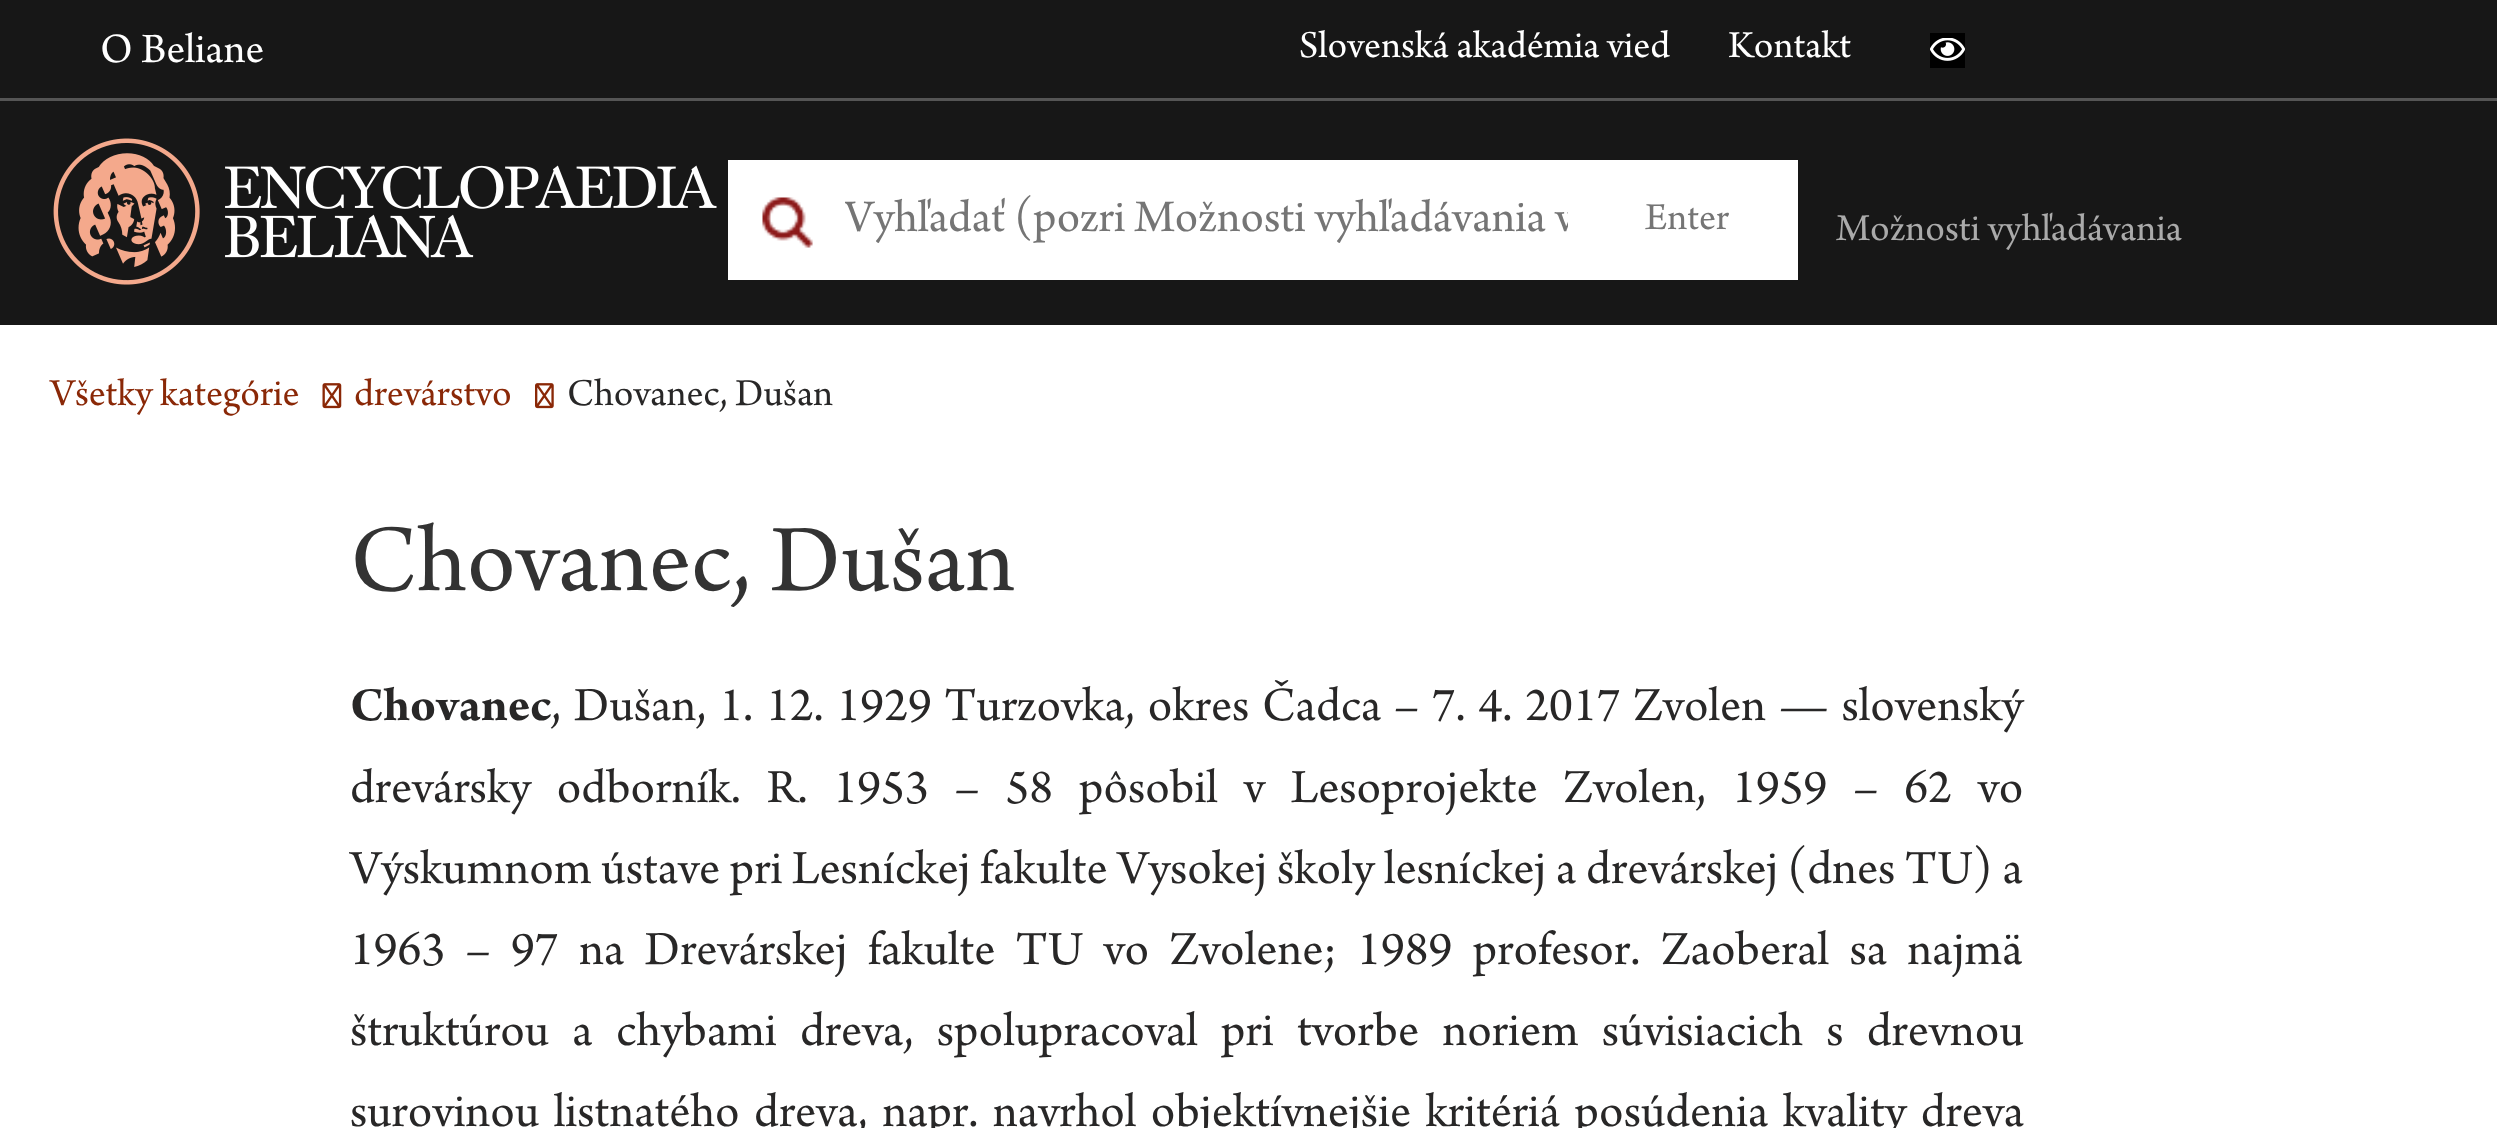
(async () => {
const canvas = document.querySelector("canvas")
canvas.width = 2497
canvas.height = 1128
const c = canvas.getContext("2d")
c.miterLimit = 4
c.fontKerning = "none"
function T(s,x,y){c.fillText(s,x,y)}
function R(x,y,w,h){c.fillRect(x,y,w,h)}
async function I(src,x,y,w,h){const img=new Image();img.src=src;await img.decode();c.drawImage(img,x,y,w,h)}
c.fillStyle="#fff"
R(0,0,2497,1128)
c.fillStyle="#171717"
R(0,0,2497,325)
c.fillStyle="#555"
R(0,98,2497,3)
c.font="44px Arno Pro"
c.fillStyle="#fff"
T("O Beliane",100,62)
c.font="40px Arno Pro"
T("Slovenská akadémia vied",1299,57)
T("Kontakt",1728,57)
c.fillStyle="#000"
R(1930,33,35,35)
await I("1.png",1930,38,35,23)
await I("2.png",53,138,664,147)
c.fillStyle="#fff"
R(728,160,1070,120)
await I("3.png",762,197,51,51)
c.save()
c.beginPath()
c.rect(845,188,723,65)
c.clip()
c.font="47.6px Arno Pro"
c.fillStyle="#757575"
T("Vyhľadať (pozri Možnosti vyhľadávania v",844,231)
c.restore()
c.fillStyle="#757575"
T("Enter",1645,229)
c.fillStyle="#aaa"
T("Možnosti vyhľadávania",1836,240)
c.fillStyle="#8a2807"
T("Všetky kategórie",50,405)
await I("4.png",322,383,20,26)
T("drevárstvo",354,405)
await I("5.png",535,383,19,26)
c.fillStyle="#282727"
T("Chovanec, Dušan",567,405)
c.font="100px Arno Pro"
c.fillStyle="#333"
T("Chovanec, Dušan",350,590)
c.font="bold 50px Arno Pro"
c.fillStyle="#282727"
T("Chovanec",350,720)
c.wordSpacing="3.25px"
c.font="50px Arno Pro"
T(", Dušan, 1. 12. 1929 Turzovka, okres Čadca – 7. 4. 2017 Zvolen — slovenský",551,720)
c.wordSpacing="16.4px"
T("drevársky odborník. R. 1953 – 58 pôsobil v Lesoprojekte Zvolen, 1959 – 62 vo",350,802)
c.wordSpacing="0.25px"
T("Výskumnom ústave pri Lesníckej fakulte Vysokej školy lesníckej a drevárskej",350,883)
T("(dnes TU) a",1787,883)
c.wordSpacing="10.9px"
T("1963 – 97 na Drevárskej fakulte TU vo Zvolene; 1989 profesor.",350,964)
T("Zaoberal sa najmä",1661,964)
c.wordSpacing="13.75px"
T("štruktúrou a chybami dreva, spolupracoval pri tvorbe noriem súvisiacich s drevnou",350,1045)
c.wordSpacing="5px"
T("surovinou listnatého dreva, napr. navrhol objektívnejšie kritériá posúdenia kvality dreva",350,1126)
})()
